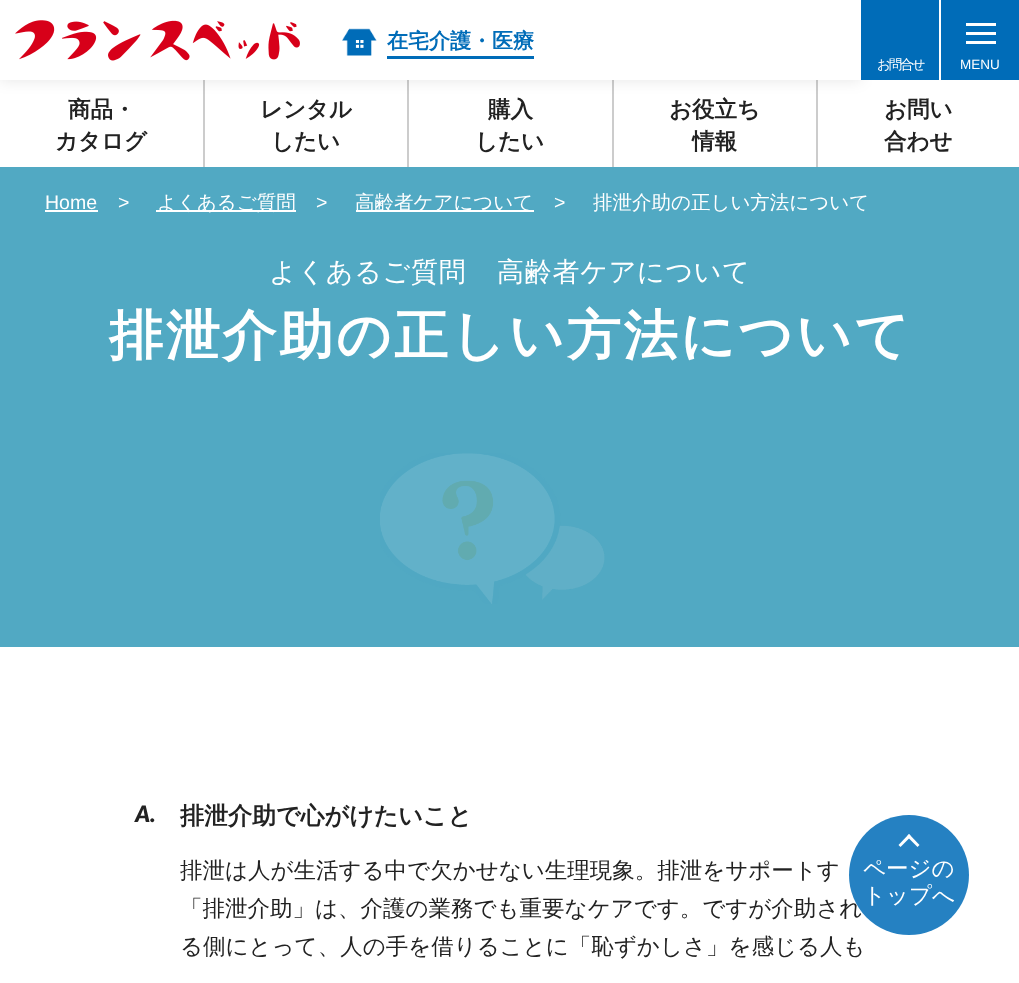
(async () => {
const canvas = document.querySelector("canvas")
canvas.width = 1019
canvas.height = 983
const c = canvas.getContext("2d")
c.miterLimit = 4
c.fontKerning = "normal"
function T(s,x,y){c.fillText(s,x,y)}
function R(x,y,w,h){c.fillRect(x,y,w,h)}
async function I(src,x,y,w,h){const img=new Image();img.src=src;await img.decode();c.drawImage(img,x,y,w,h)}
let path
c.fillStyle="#fff"
R(0,0,1019,983)
c.fillStyle="#ccc"
R(203,78,2,89)
R(407,78,2,89)
R(612,78,2,89)
R(816,78,2,89)
c.fillStyle="#0000001a"
c.filter="blur(7.5px)"
c.beginPath()
c.rect(0,0,861,80)
c.fill()
c.filter="none"
c.fillStyle="#fff"
R(0,0,861,80)
await I("1.png",15,20,285,41)
await I("2.png",342,28,35,28)
c.font="bold 21px WenQuanYi Zen Hei"
c.fillStyle="#006cb8"
T("在宅介護・医療",387,48)
R(387,56,147,3)
R(861,0,78,80)
c.letterSpacing="-2px"
c.font="500 13.5px WenQuanYi Zen Hei"
c.fillStyle="#fff"
T("お問合せ",877,69)
c.fillStyle="#006cb8"
R(941,0,78,80)
c.fillStyle="#fff"
R(966,23,30,3)
R(966,32,30,3)
R(966,41,30,3)
c.letterSpacing="0px"
c.font="13.5px Liberation Sans"
T("MENU",960,69)
c.font="bold 22.5px WenQuanYi Zen Hei"
c.fillStyle="#222"
T("商品・",68,117)
T("カタログ",55,149)
T("レンタル",260,117)
T("したい",271,149)
T("購入",488,117)
T("したい",475,149)
T("お役立ち",669,117)
T("情報",692,149)
T("お問い",884,117)
T("合わせ",884,149)
c.fillStyle="#51a9c3"
R(0,167,1019,480)
c.font="19.5px Liberation Sans"
c.fillStyle="#fff"
T("Home",45,209)
R(45,210,53,2)
T(">",118,209)
R(156,210,140,2)
c.font="500 19.5px WenQuanYi Zen Hei"
T("よくあるご質問",157,209)
c.font="19.5px Liberation Sans"
T(">",316,209)
R(356,210,178,2)
c.font="500 19.5px WenQuanYi Zen Hei"
T("高齢者ケアについて",355,209)
c.font="19.5px Liberation Sans"
T(">",554,209)
c.font="500 19.5px WenQuanYi Zen Hei"
T("排泄介助の正しい方法について",593,209)
c.letterSpacing="0.75px"
c.font="500 27px WenQuanYi Zen Hei"
T("よくあるご質問",269,281)
T("高齢者ケアについて",497,281)
c.letterSpacing="2.75px"
c.font="bold 54px WenQuanYi Zen Hei"
T("排泄介助の正しい方法について",109,354)
await I("3.png",380,453,225,151)
c.letterSpacing="0px"
c.font="italic 900 22.5px Lato"
c.fillStyle="#222"
T("A.",135,822)
c.font="bold 24px WenQuanYi Zen Hei"
T("排泄介助で心がけたいこと",180,824)
c.font="500 22.5px WenQuanYi Zen Hei"
T("排泄は人が生活する中で欠かせない生理現象。排泄をサポートす",180,878)
T("「排泄介助」は、介護の業務でも重要なケアです。ですが介助され",180,916)
T("る側にとって、人の手を借りることに「恥ずかしさ」を感じる人も",180,954)
c.fillStyle="#2581c2"
c.beginPath()
c.arc(909,875,60,0,7)
c.fill()
c.fillStyle="#fff"
path = new Path2D("M909 834l10.5 11l-2 2l-10.5-10.5z")
c.fill(path)
path = new Path2D("M909 834l2 2.5l-10.5 10.5l-2-2z")
c.fill(path)
T("ページの",863,876)
T("トップへ",863,903)
})()
